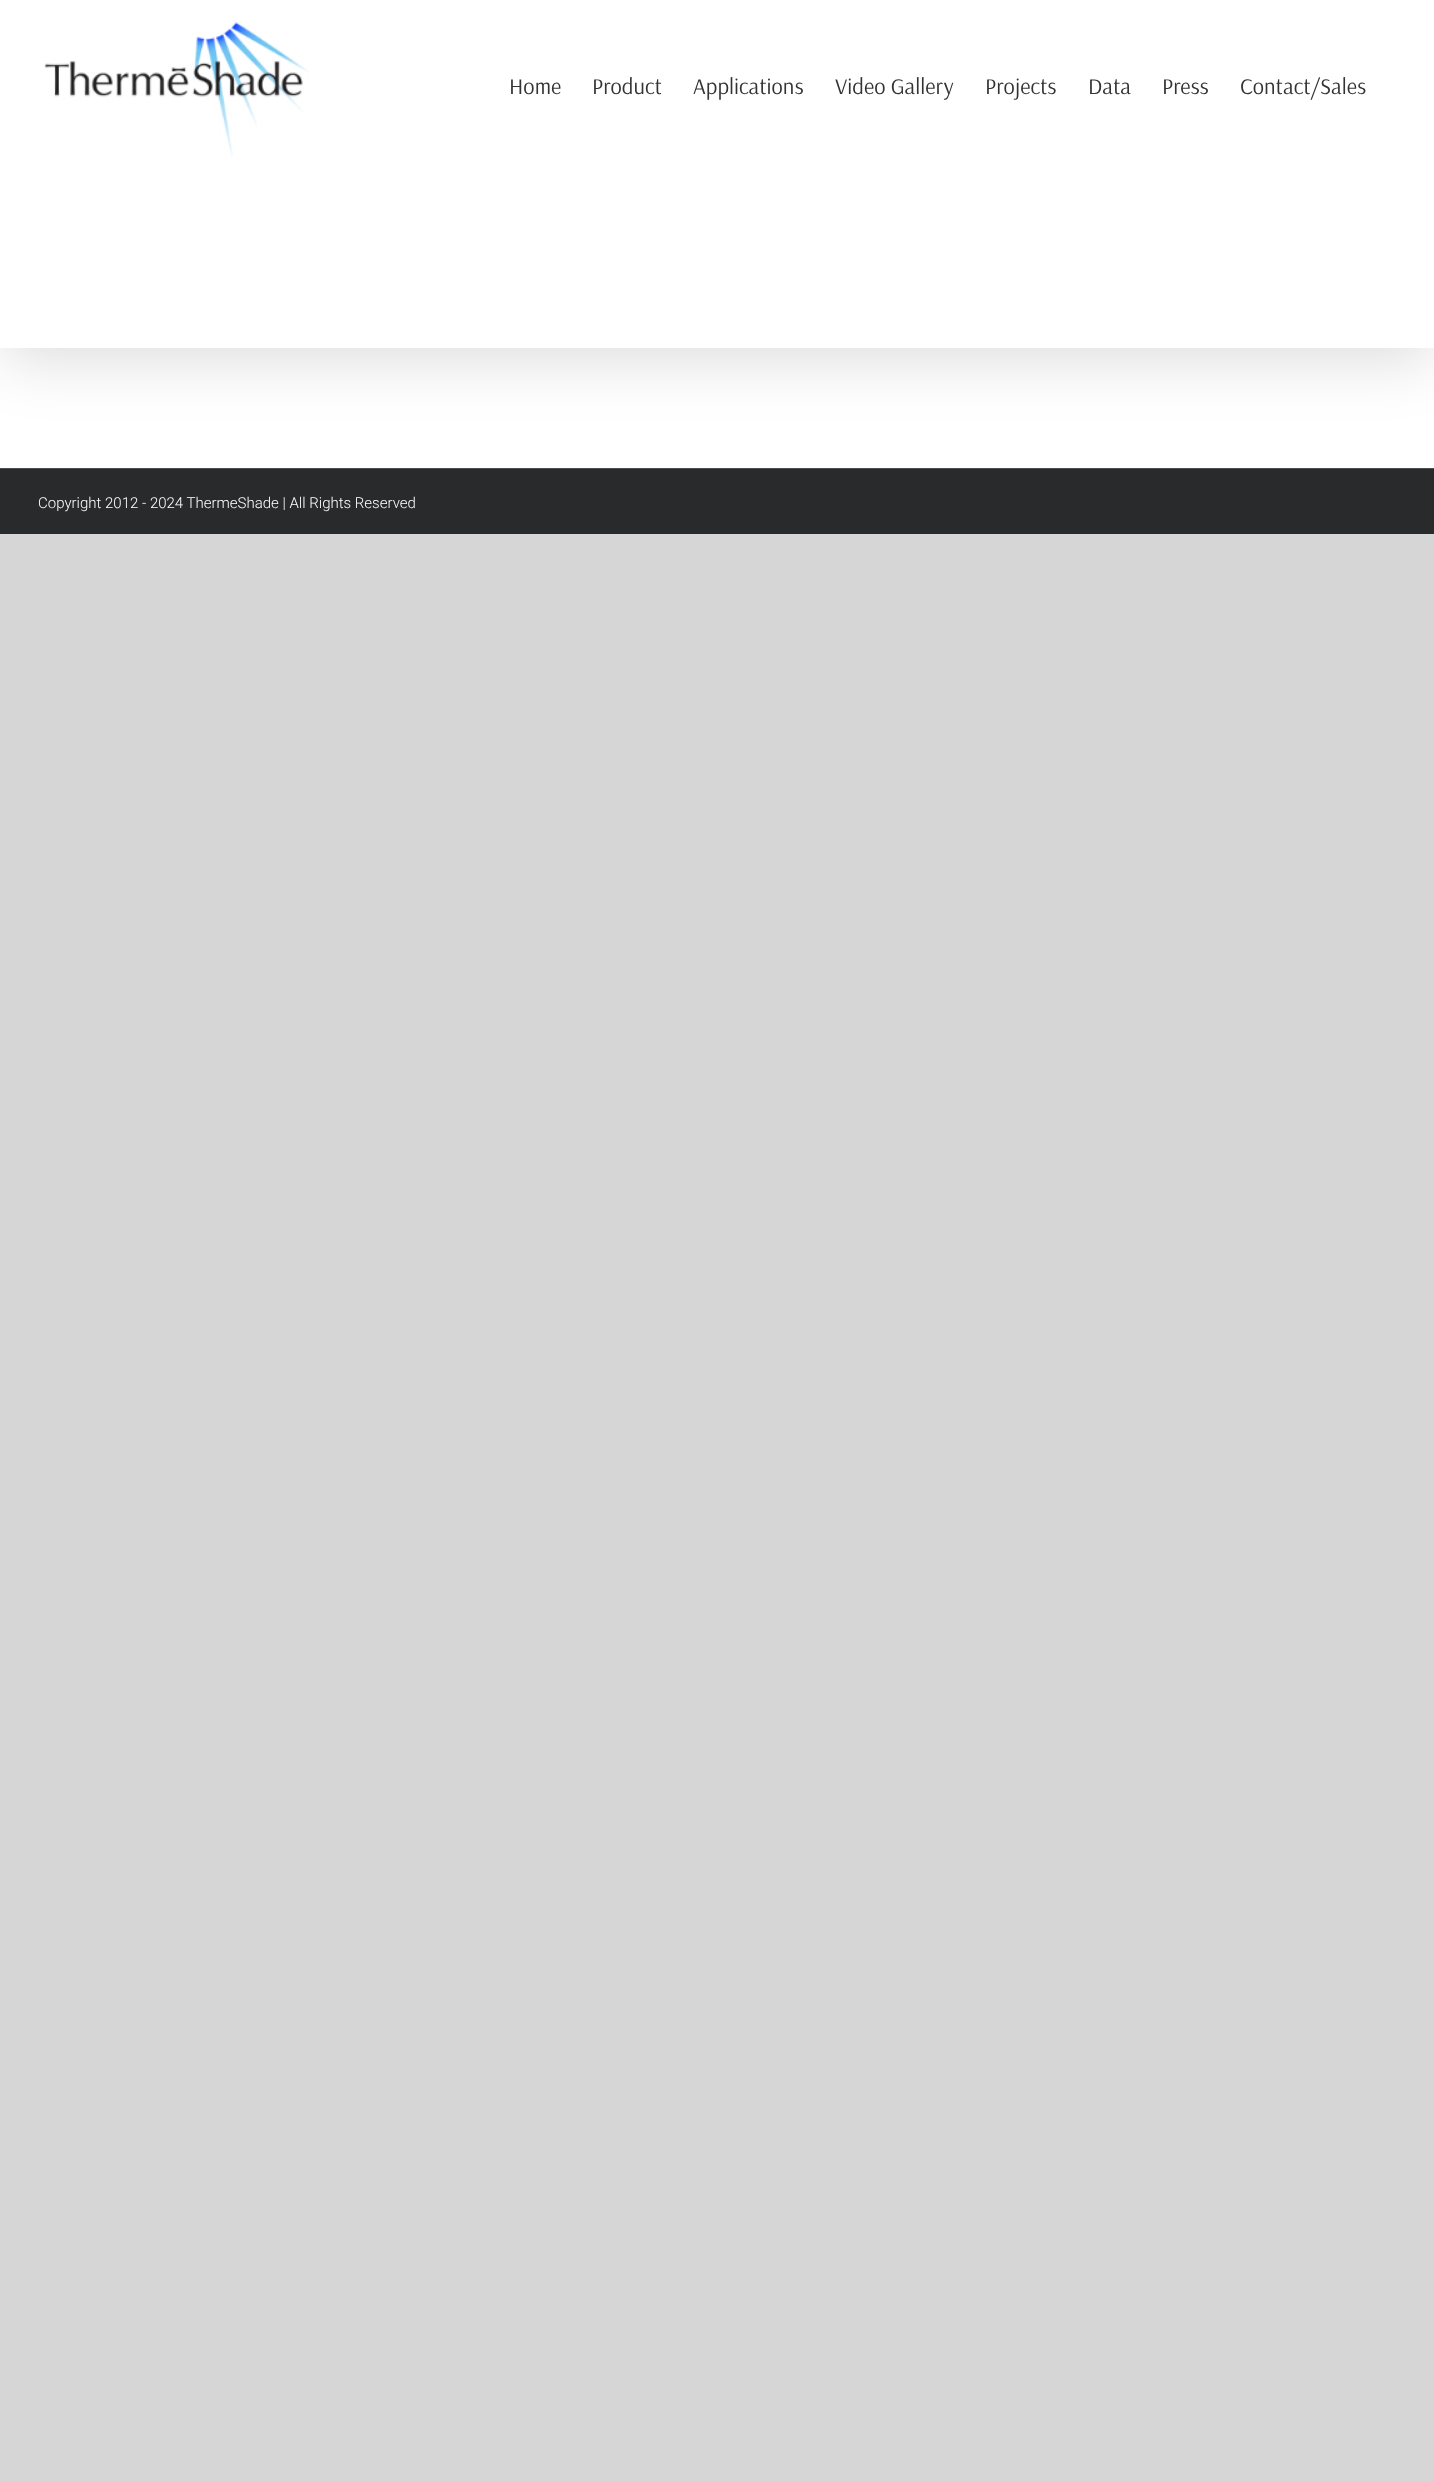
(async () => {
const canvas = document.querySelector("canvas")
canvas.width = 1434
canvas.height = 2481
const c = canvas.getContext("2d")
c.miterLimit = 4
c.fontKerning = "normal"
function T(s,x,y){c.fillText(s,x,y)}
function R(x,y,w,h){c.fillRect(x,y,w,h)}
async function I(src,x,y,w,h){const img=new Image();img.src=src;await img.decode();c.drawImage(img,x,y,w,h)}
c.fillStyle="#d7d6d6"
R(0,0,1434,2481)
c.fillStyle="#fff"
R(0,348,1434,120)
c.fillStyle="#00000024"
c.filter="blur(31px)"
c.beginPath()
c.rect(3,15,1430,343)
c.fill()
c.filter="none"
c.fillStyle="#fff"
R(0,0,1434,348)
await I("1.png",44,22,265,135)
c.font="22.5px Arsenal"
c.fillStyle="#333"
T("Home",509,94)
T("Product",592,94)
T("Applications",693,94)
T("Video Gallery",835,94)
T("Projects",985,94)
T("Data",1088,94)
T("Press",1162,94)
T("Contact/Sales",1240,94)
c.fillStyle="#282a2b"
R(0,469,1434,65)
c.fillStyle="#4b4c4d"
R(0,468,1434,1)
c.font="300 15px Roboto"
c.fillStyle="#fff"
T("Copyright 2012 - 2024 ThermeShade | All Rights Reserved",38,508)
})()
